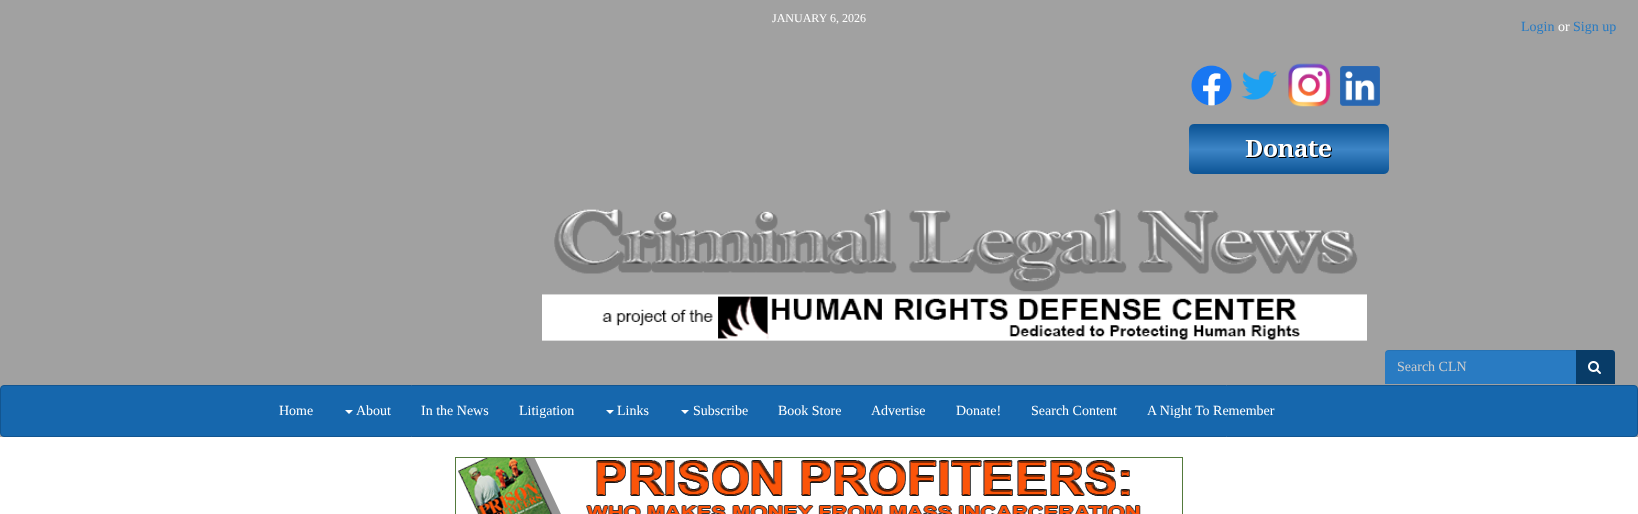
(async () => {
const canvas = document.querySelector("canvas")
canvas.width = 1638
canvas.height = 514
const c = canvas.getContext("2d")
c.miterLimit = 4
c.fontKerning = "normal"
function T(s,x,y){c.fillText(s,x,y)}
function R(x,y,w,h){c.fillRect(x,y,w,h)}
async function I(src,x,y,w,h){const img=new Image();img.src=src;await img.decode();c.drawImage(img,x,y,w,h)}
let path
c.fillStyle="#fff"
R(0,0,1638,514)
c.fillStyle="#a1a1a1"
R(0,0,1638,437)
c.font="12px Liberation Serif"
c.fillStyle="#fff"
T("JANUARY 6, 2026",772,22)
await I("1.png",542,209,825,132)
await I("2.png",1191,65,41,41)
await I("3.png",1241,70,36,30)
await I("4.png",1288,63,43,44)
await I("5.png",1340,66,40,40)
await I("6.png",1189,124,200,50)
c.font="14px Liberation Serif"
c.fillStyle="#297bc2"
T("Login",1521,31)
c.fillStyle="#fff"
T("or",1558,31)
c.fillStyle="#297bc2"
T("Sign up",1573,31)
c.fillStyle="#1667ad"
c.beginPath()
c.roundRect(.5,385.5,1637,51,3.5)
c.fill()
c.strokeStyle="#125590"
c.stroke()
c.fillStyle="#297bc2"
c.beginPath()
c.roundRect(1385,350,230,34,[4,4,0,0])
c.fill()
c.fillStyle="#00000012"
path = new Path2D("M1389 351h222c2 0 4 2 4 4c0-3-1-5-4-5h-222c-3 0-4 2-4 5c0-2 2-4 4-4z")
c.fill(path)
c.fillStyle="#ccc"
T("Search CLN",1397,371)
c.fillStyle="#083c68"
c.beginPath()
c.roundRect(1576,350,39,34,[0,4,0,0])
c.fill()
await I("7.png",1588,361,13,13)
c.fillStyle="#fff"
T("Home",279,415)
path = new Path2D("M345 410h8l-4 4z")
c.fill(path)
T("About",356,415)
T("In the News",421,415)
T("Litigation",519,415)
path = new Path2D("M606 410h8l-4 4z")
c.fill(path)
T("Links",617,415)
path = new Path2D("M681 410h8l-4 4z")
c.fill(path)
T("Subscribe",693,415)
T("Book Store",778,415)
T("Advertise",871,415)
T("Donate!",956,415)
T("Search Content",1031,415)
T("A Night To Remember",1147,415)
await I("8.png",455,457,728,57)
})()
